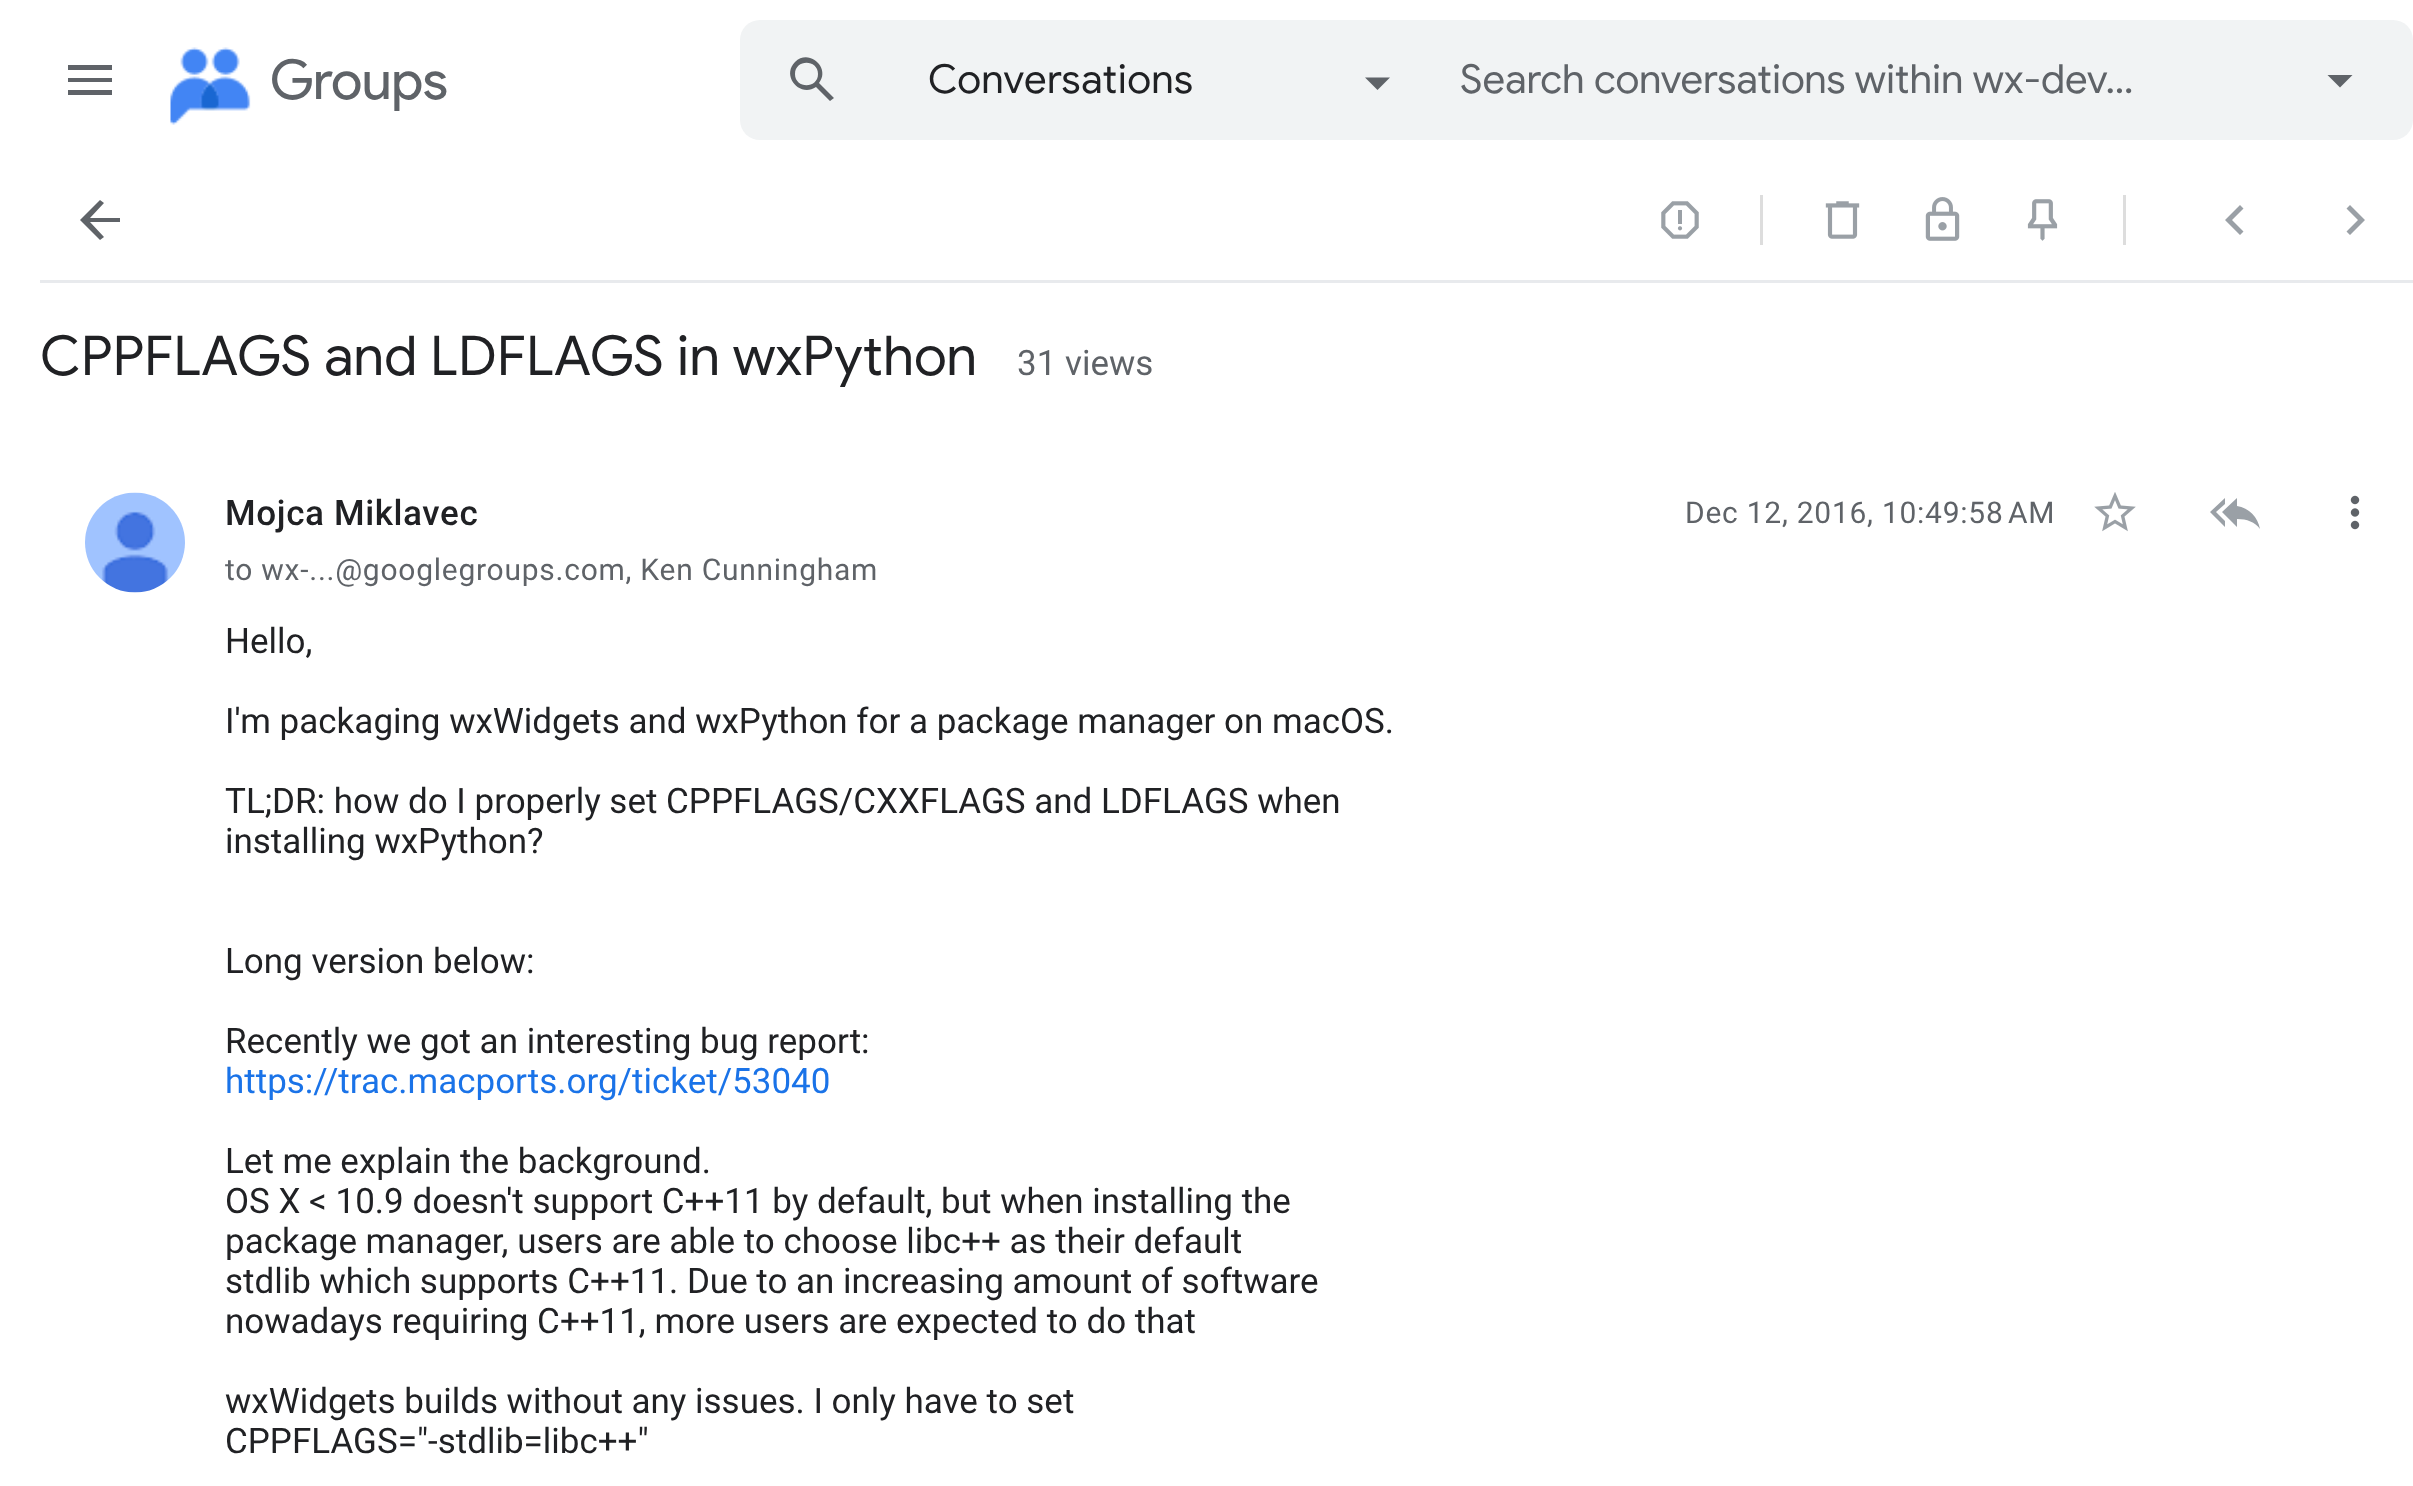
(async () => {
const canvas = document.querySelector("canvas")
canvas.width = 2413
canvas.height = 1486
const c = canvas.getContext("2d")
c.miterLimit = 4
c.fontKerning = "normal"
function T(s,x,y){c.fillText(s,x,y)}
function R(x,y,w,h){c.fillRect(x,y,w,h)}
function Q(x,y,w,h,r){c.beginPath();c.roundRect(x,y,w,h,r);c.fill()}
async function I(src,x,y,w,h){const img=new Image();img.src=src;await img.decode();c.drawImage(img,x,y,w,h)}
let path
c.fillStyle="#fff"
R(0,0,2413,1486)
c.fillStyle="#5f6368"
path = new Path2D("M68 95h44v-5h-44zm0-13h44v-4h-44zm0-17v5h44v-5z")
c.fill(path)
await I("1.png",170,47,81,78)
c.font="55px Product Sans"
T("Groups",270,99)
c.fillStyle="#f1f3f4"
Q(740,20,1673,120,20)
c.fillStyle="#5f6368"
path = new Path2D("M834 98l-15-15c12-15-10-35-24-21c-14 14 5 36 21 25l14 14zm-39-24c0-15 23-15 23 0c0 15-23 15-23 0z")
c.fill(path)
c.letterSpacing="0.5px"
c.font="40px Google Sans"
c.fillStyle="#202124"
T("Conversations",928,93)
c.fillStyle="#5f6368"
path = new Path2D("M1365 77.5h25l-12.5 12.5z")
c.fill(path)
c.letterSpacing="0px"
T("Search conversations within wx-dev…",1460,93)
path = new Path2D("M2327.5 75l12.5 12.5l12.5-12.5z")
c.fill(path)
c.fillStyle="#e8eaed"
R(40,280,2373,3)
c.fillStyle="#5f6368"
path = new Path2D("M120 218v4h-30l14 15l-4 3l-20-20l20-20l4 3l-14 15z")
c.fill(path)
await I("2.png",1661,201,38,38)
c.fillStyle="#ddd"
R(1760,195,3,50)
await I("3.png",1825,201,35,38)
await I("4.png",1925,197,35,44)
await I("5.png",2027,199,31,42)
R(2123,195,3,50)
c.fillStyle="#9aa0a6"
path = new Path2D("M2243.5 208.5l-11.5 11.5l11.5 11.5l-3.5 3.5l-15-15l15-15z")
c.fill(path)
path = new Path2D("M2350 205l15 15l-15 15l-3.5-3.5l11.5-11.5l-11.5-11.5z")
c.fill(path)
c.font="55px Google Sans"
c.fillStyle="#202124"
T("CPPFLAGS and LDFLAGS in wxPython",40,375)
c.font="35px Roboto"
c.fillStyle="#5f6368"
T("31 views",1017,375)
await I("6.png",85,492,100,101)
c.letterSpacing="0.6px"
c.font="500 35px Roboto"
c.fillStyle="#202124"
T("Mojca Miklavec",225,525)
c.letterSpacing="0.75px"
c.font="30px Roboto"
c.fillStyle="#5f6368"
T("Dec 12, 2016, 10:49:58 AM",1685,523)
await I("7.png",2094,492,42,40)
c.fillStyle="#9aa0a6"
path = new Path2D("M2237 506c12 2 21 11 23 23c-5-7-13-10-23-10v8l-15-15l15-14zm-12-2l-9 8l9 9v6l-15-15l15-14z")
c.fill(path)
await I("8.png",2350,495,10,35)
c.fillStyle="#5f6368"
T("to wx-...@googlegroups.com, Ken Cunningham",225,580)
c.letterSpacing="0px"
c.font="35px Roboto"
c.fillStyle="#202124"
T("Hello,",225,653)
T("I'm packaging wxWidgets and wxPython for a package manager on macOS.",225,733)
T("TL;DR: how do I properly set CPPFLAGS/CXXFLAGS and LDFLAGS when",225,813)
T("installing wxPython?",225,853)
T("Long version below:",225,973)
T("Recently we got an interesting bug report:",225,1053)
c.fillStyle="#1a73e8"
T("https://trac.macports.org/ticket/53040",225,1093)
c.fillStyle="#202124"
T("Let me explain the background.",225,1173)
T("OS X < 10.9 doesn't support C++11 by default, but when installing the",225,1213)
T("package manager, users are able to choose libc++ as their default",225,1253)
T("stdlib which supports C++11. Due to an increasing amount of software",225,1293)
T("nowadays requiring C++11, more users are expected to do that",225,1333)
T("wxWidgets builds without any issues. I only have to set",225,1413)
T("CPPFLAGS=\"-stdlib=libc++\"",225,1453)
})()
